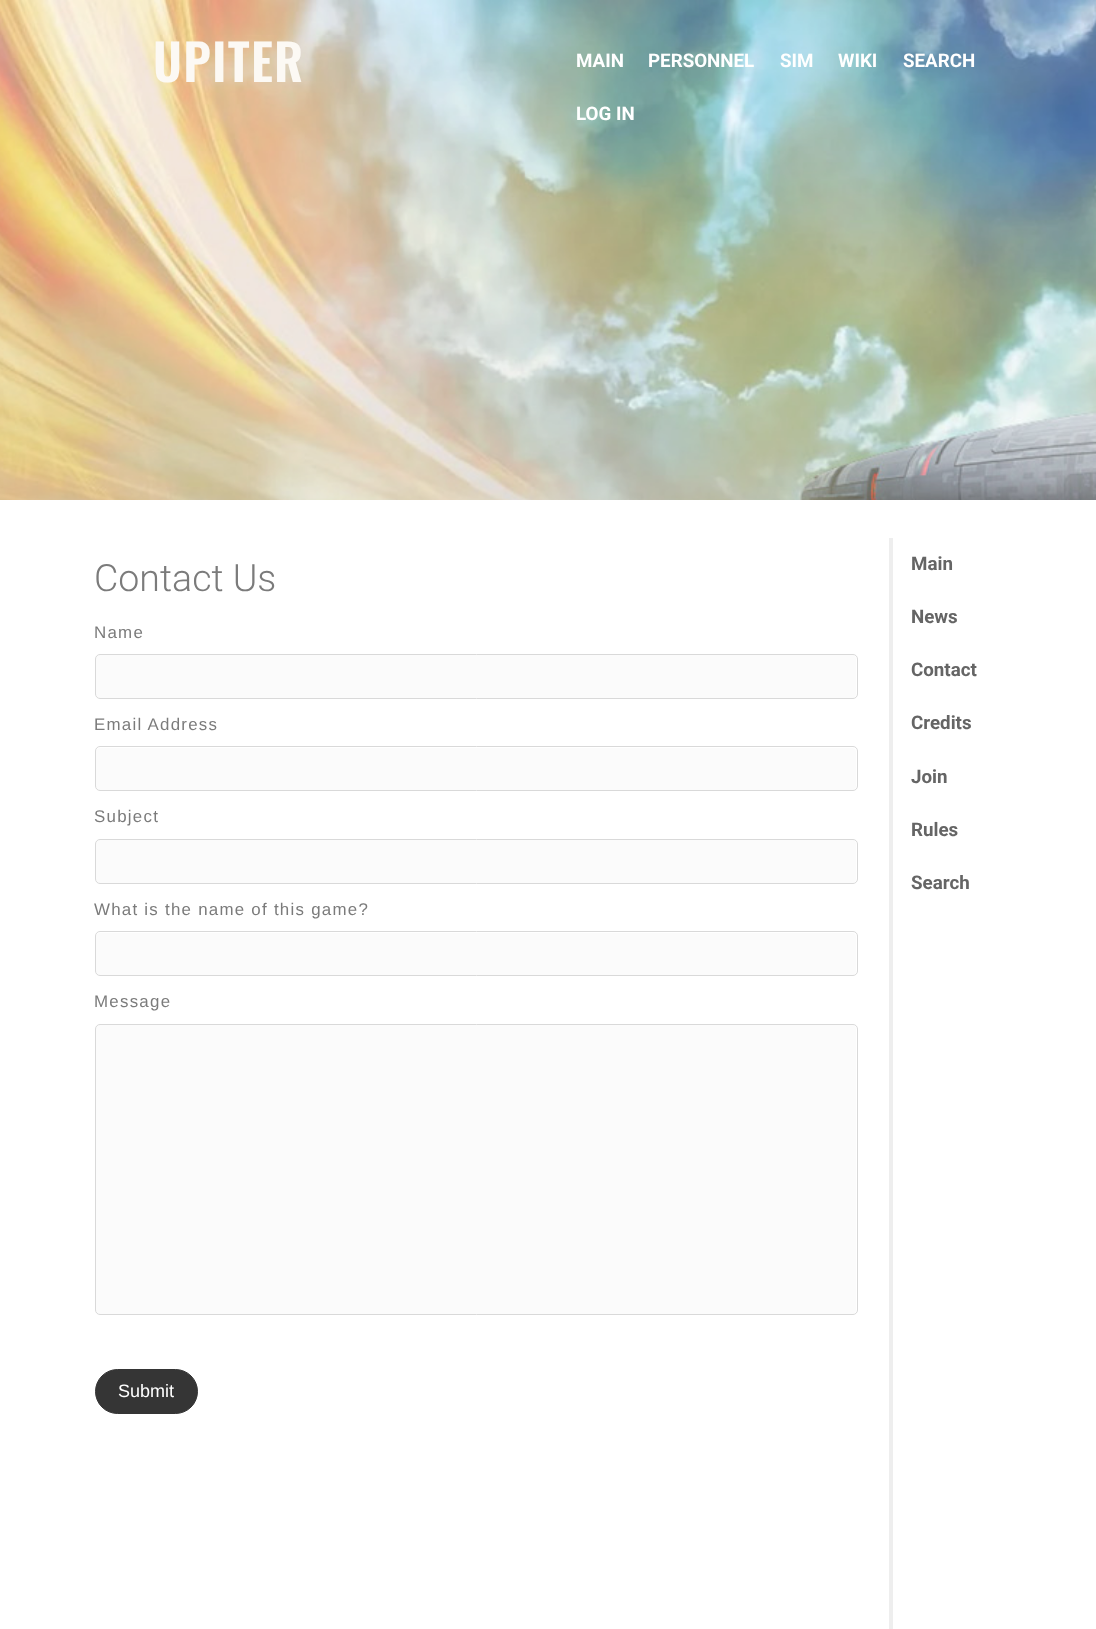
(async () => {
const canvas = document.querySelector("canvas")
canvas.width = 1096
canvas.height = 1629
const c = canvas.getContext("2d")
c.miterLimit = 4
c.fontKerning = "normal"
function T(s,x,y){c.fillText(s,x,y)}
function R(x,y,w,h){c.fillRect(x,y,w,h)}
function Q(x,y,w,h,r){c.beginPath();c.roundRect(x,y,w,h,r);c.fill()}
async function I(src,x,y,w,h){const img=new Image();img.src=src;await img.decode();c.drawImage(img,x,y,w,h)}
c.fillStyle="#fff"
R(0,0,1096,1629)
await I("1.png",0,119,1096,381)
await I("2.png",0,0,1096,119)
c.letterSpacing="1.25px"
c.font="600 50px Oswald"
c.fillStyle="#fcf9f4"
T("UPITER",153,82)
c.letterSpacing="0px"
c.font="bold 18.75px Roboto"
c.fillStyle="#fff"
T("MAIN",576,67)
T("PERSONNEL",648,67)
T("SIM",780,67)
T("WIKI",838,67)
T("SEARCH",903,67)
T("LOG IN",576,120)
c.font="300 37.5px Roboto"
c.fillStyle="#7b7b7b"
T("Contact Us",94,591)
c.letterSpacing="1.25px"
c.font="16.9px Liberation Sans"
T("Name",94,638)
c.fillStyle="#fbfbfb"
Q(96,655,760,43,4)
c.beginPath()
c.roundRect(95.5,654.5,762,44,4.5)
c.strokeStyle="#d9d9d9"
c.stroke()
c.fillStyle="#7b7b7b"
T("Email Address",94,730)
c.fillStyle="#fbfbfb"
Q(96,748,760,42,4)
c.beginPath()
c.roundRect(95.5,746.5,762,44,4.5)
c.stroke()
c.fillStyle="#7b7b7b"
T("Subject",94,822)
c.fillStyle="#fbfbfb"
Q(96,840,760,43,4)
c.beginPath()
c.roundRect(95.5,839.5,762,44,4.5)
c.stroke()
c.fillStyle="#7b7b7b"
T("What is the name of this game?",94,915)
c.fillStyle="#fbfbfb"
Q(96,933,760,42,4)
c.beginPath()
c.roundRect(95.5,931.5,762,44,4.5)
c.stroke()
c.fillStyle="#7b7b7b"
T("Message",94,1007)
c.fillStyle="#fbfbfb"
Q(96,1025,760,289,4)
c.beginPath()
c.roundRect(95.5,1024.5,762,290,4.5)
c.stroke()
c.fillStyle="#353535"
c.beginPath()
c.roundRect(95.5,1369.5,102,44,22)
c.fill()
c.strokeStyle="#353535"
c.stroke()
c.letterSpacing="0px"
c.font="18px Liberation Sans"
c.fillStyle="#fff"
T("Submit",118,1397)
c.fillStyle="#eee"
R(889,538,4,1091)
c.font="bold 18.75px Roboto"
c.fillStyle="#656565"
T("Main",911,570)
T("News",911,623)
T("Contact",911,676)
T("Credits",911,729)
T("Join",911,783)
T("Rules",911,836)
T("Search",911,889)
})()
